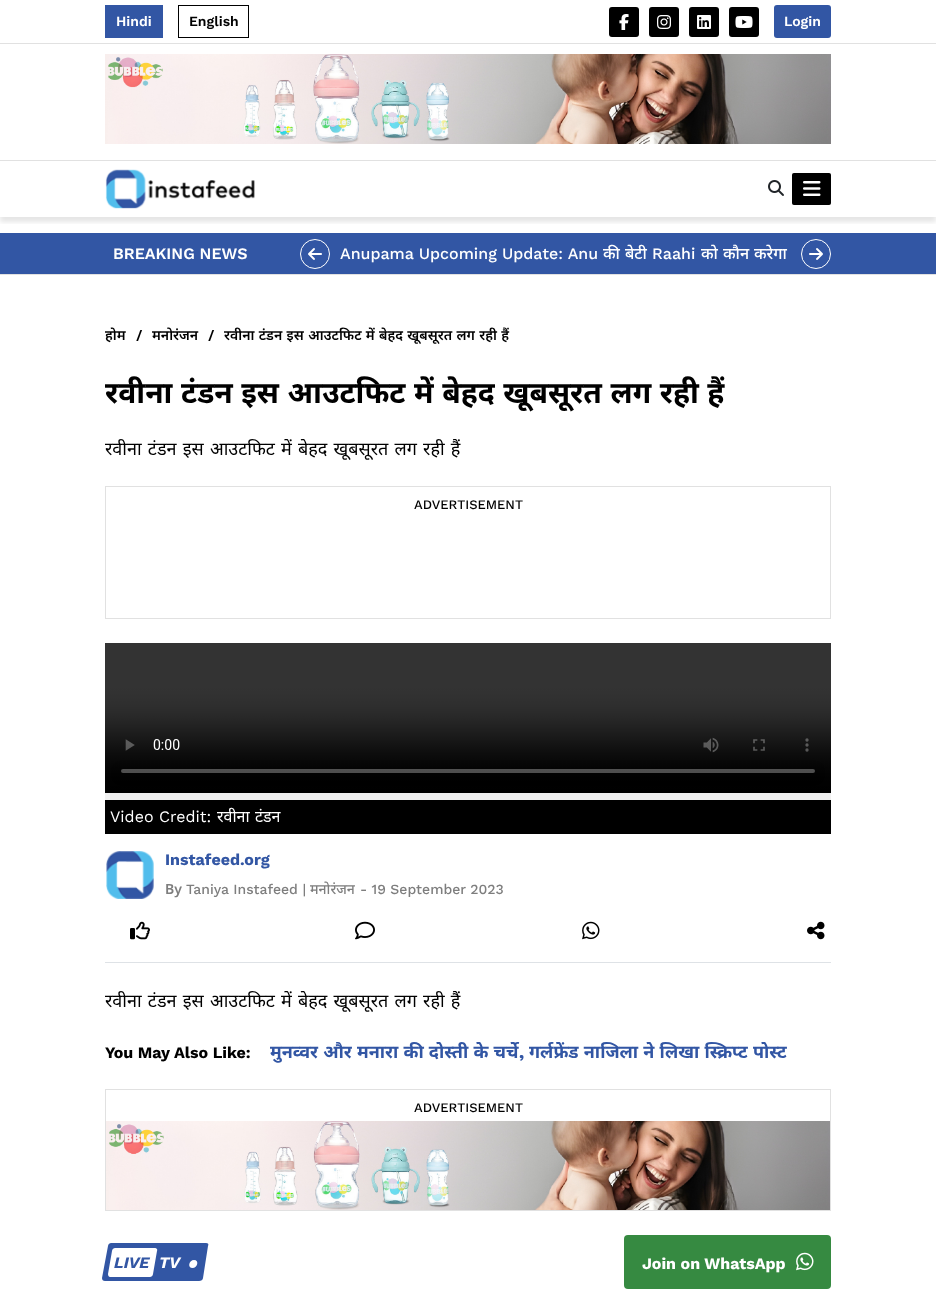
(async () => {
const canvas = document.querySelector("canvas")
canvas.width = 936
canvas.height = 1310
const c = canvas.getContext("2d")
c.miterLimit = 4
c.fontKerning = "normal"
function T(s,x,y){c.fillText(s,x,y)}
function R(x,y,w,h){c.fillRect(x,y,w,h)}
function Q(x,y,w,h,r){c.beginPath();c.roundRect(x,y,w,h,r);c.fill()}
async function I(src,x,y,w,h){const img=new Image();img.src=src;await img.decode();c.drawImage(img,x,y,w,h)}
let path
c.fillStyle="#fff"
R(0,0,936,1310)
c.fillStyle="#e1e1e1"
R(0,43,936,1)
c.fillStyle="#3256a4"
R(105,5,58,33)
c.font="600 14px Work Sans"
c.fillStyle="#fff"
T("Hindi",116,26)
c.strokeStyle="#000"
c.strokeRect(178.5,5.5,70,32)
c.fillStyle="#000"
T("English",189,26)
Q(609,7,30,30,3)
await I("1.png",619,14,10,16)
Q(649,7,30,30,3)
await I("2.png",657,15,14,14)
Q(689,7,30,30,3)
await I("3.png",697,15,14,14)
Q(729,7,30,30,3)
await I("4.png",735,16,18,12)
c.fillStyle="#3256a4"
Q(774,5,57,33,3)
c.fillStyle="#fff"
T("Login",784,26)
await I("5.png",105,54,726,90)
c.save()
c.beginPath()
c.rect(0,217,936,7)
c.clip()
c.fillStyle="#0000001a"
c.filter="blur(2.5px)"
c.beginPath()
c.rect(0,165,936,57)
c.fill()
c.filter="none"
c.restore()
c.fillStyle="#e1e1e1"
R(0,160,936,1)
await I("6.png",105,169,150,40)
await I("7.png",768,180,16,16)
c.fillStyle="#000"
Q(792,173,39,32,2)
c.beginPath()
c.roundRect(792.5,173.5,38,31,1.5)
c.strokeStyle="#00000026"
c.stroke()
await I("8.png",803,181,18,15)
c.fillStyle="#3256a4"
R(0,233,936,41)
c.fillStyle="#e1e1e1"
R(0,274,936,1)
c.font="600 16px Work Sans"
c.fillStyle="#fff"
T("BREAKING NEWS",113,259)
c.beginPath()
c.arc(315,254,14.5,0,7)
c.strokeStyle="#fff"
c.stroke()
await I("9.png",308,248,14,12)
c.font="500 16px Work Sans"
T("Anupama Upcoming Update: Anu",340,259)
c.font="500 16px Noto Sans"
T("की",603,259)
T("बेटी",625,259)
c.font="500 16px Work Sans"
T("Raahi",652,259)
c.font="500 16px Noto Sans"
T("को",701,259)
T("कौन",723,259)
T("करेगा",754,259)
c.beginPath()
c.arc(816,254,14.5,0,7)
c.stroke()
await I("10.png",809,248,14,12)
c.font="600 14px Noto Sans"
c.fillStyle="#000"
T("होम",105,340)
c.font="600 14px Work Sans"
T("/",136,340)
c.font="600 14px Noto Sans"
T("मनोरंजन",152,340)
c.font="600 14px Work Sans"
T("/",208,340)
c.wordSpacing="0.75px"
c.font="600 14px Noto Sans"
T("रवीना टंडन इस आउटफिट में बेहद खूबसूरत लग रही हैं",224,340)
c.font="bold 30px Noto Sans"
T("रवीना टंडन इस आउटफिट में बेहद खूबसूरत लग रही हैं",105,403)
c.wordSpacing="1.5px"
c.font="18px Noto Sans"
T("रवीना टंडन इस आउटफिट में बेहद खूबसूरत लग रही हैं",105,455)
c.strokeStyle="#e1e1e1"
c.strokeRect(105.5,486.5,725,132)
c.wordSpacing="0px"
c.font="500 13px Work Sans"
T("ADVERTISEMENT",414,509)
c.fillStyle="#f0f0f0"
R(105,793,726,7)
await I("11.png",105,643,726,150)
c.fillStyle="#000"
R(105,800,726,34)
c.font="16px Work Sans"
c.fillStyle="#fff"
T("Video Credit:",110,822)
c.font="16px Noto Sans"
T("रवीना",217,822)
T("टंडन",255,822)
c.fillStyle="#dee2e6"
R(105,962,726,1)
await I("12.png",106,851,48,48)
c.font="bold 16px Work Sans"
c.fillStyle="#3256a4"
T("Instafeed.org",165,865)
c.font="600 14px Noto Sans"
c.fillStyle="#7e7e7e"
T("By",165,894)
c.font="500 14px Work Sans"
T("Taniya Instafeed |",186,894)
c.font="500 14px Noto Sans"
T("मनोरंजन",310,894)
c.font="500 14px Work Sans"
T("- 19 September 2023",360,894)
await I("13.png",130,921,20,19)
await I("14.png",355,921,20,19)
await I("15.png",582,921,18,19)
await I("16.png",807,921,18,19)
c.wordSpacing="1.5px"
c.font="18px Noto Sans"
c.fillStyle="#000"
T("रवीना टंडन इस आउटफिट में बेहद खूबसूरत लग रही हैं",105,1007)
c.wordSpacing="0px"
c.font="bold 16px Work Sans"
T("You May Also Like:",105,1058)
c.wordSpacing="0.5px"
c.font="bold 18px Noto Sans"
c.fillStyle="#3256a4"
T("मुनव्वर और मनारा की दोस्ती के चर्चे",270,1058)
c.wordSpacing="0px"
c.font="bold 18px Work Sans"
T(",",519,1058)
c.wordSpacing="0.5px"
c.font="bold 18px Noto Sans"
T("गर्लफ्रेंड नाजिला ने लिखा स्क्रिप्ट पोस्ट",529,1058)
c.strokeRect(105.5,1089.5,725,121)
c.wordSpacing="0px"
c.font="500 13px Work Sans"
c.fillStyle="#000"
T("ADVERTISEMENT",414,1112)
await I("17.png",106,1121,724,89)
c.fillStyle="#3256a4"
path = new Path2D("M111 1243h95c2 0 3 1 2 3l-5 32c0 2-2 3-4 3h-94c-2 0-3-1-3-3l6-32c0-2 2-3 3-3z")
c.fill(path)
c.fillStyle="#fff"
path = new Path2D("M115 1248h40c1 0 3 1 2 3l-4 23c0 2-2 3-3 3h-40c-1 0-2-1-2-3l4-23c0-2 2-3 3-3z")
c.fill(path)
c.font="italic bold 16px Work Sans"
c.fillStyle="#3256a4"
T("LIVE",114,1268)
c.fillStyle="#fff"
T("TV",159,1268)
path = new Path2D("M194 1260c5.5 0 3.5 8-1.5 8c-5.5 0-3.5-8 1.5-8z")
c.fill(path)
c.fillStyle="#368a41"
Q(624,1235,207,54,4)
c.font="bold 16px Work Sans"
c.fillStyle="#fff"
T("Join on WhatsApp",642,1269)
await I("18.png",796,1252,18,19)
})()
